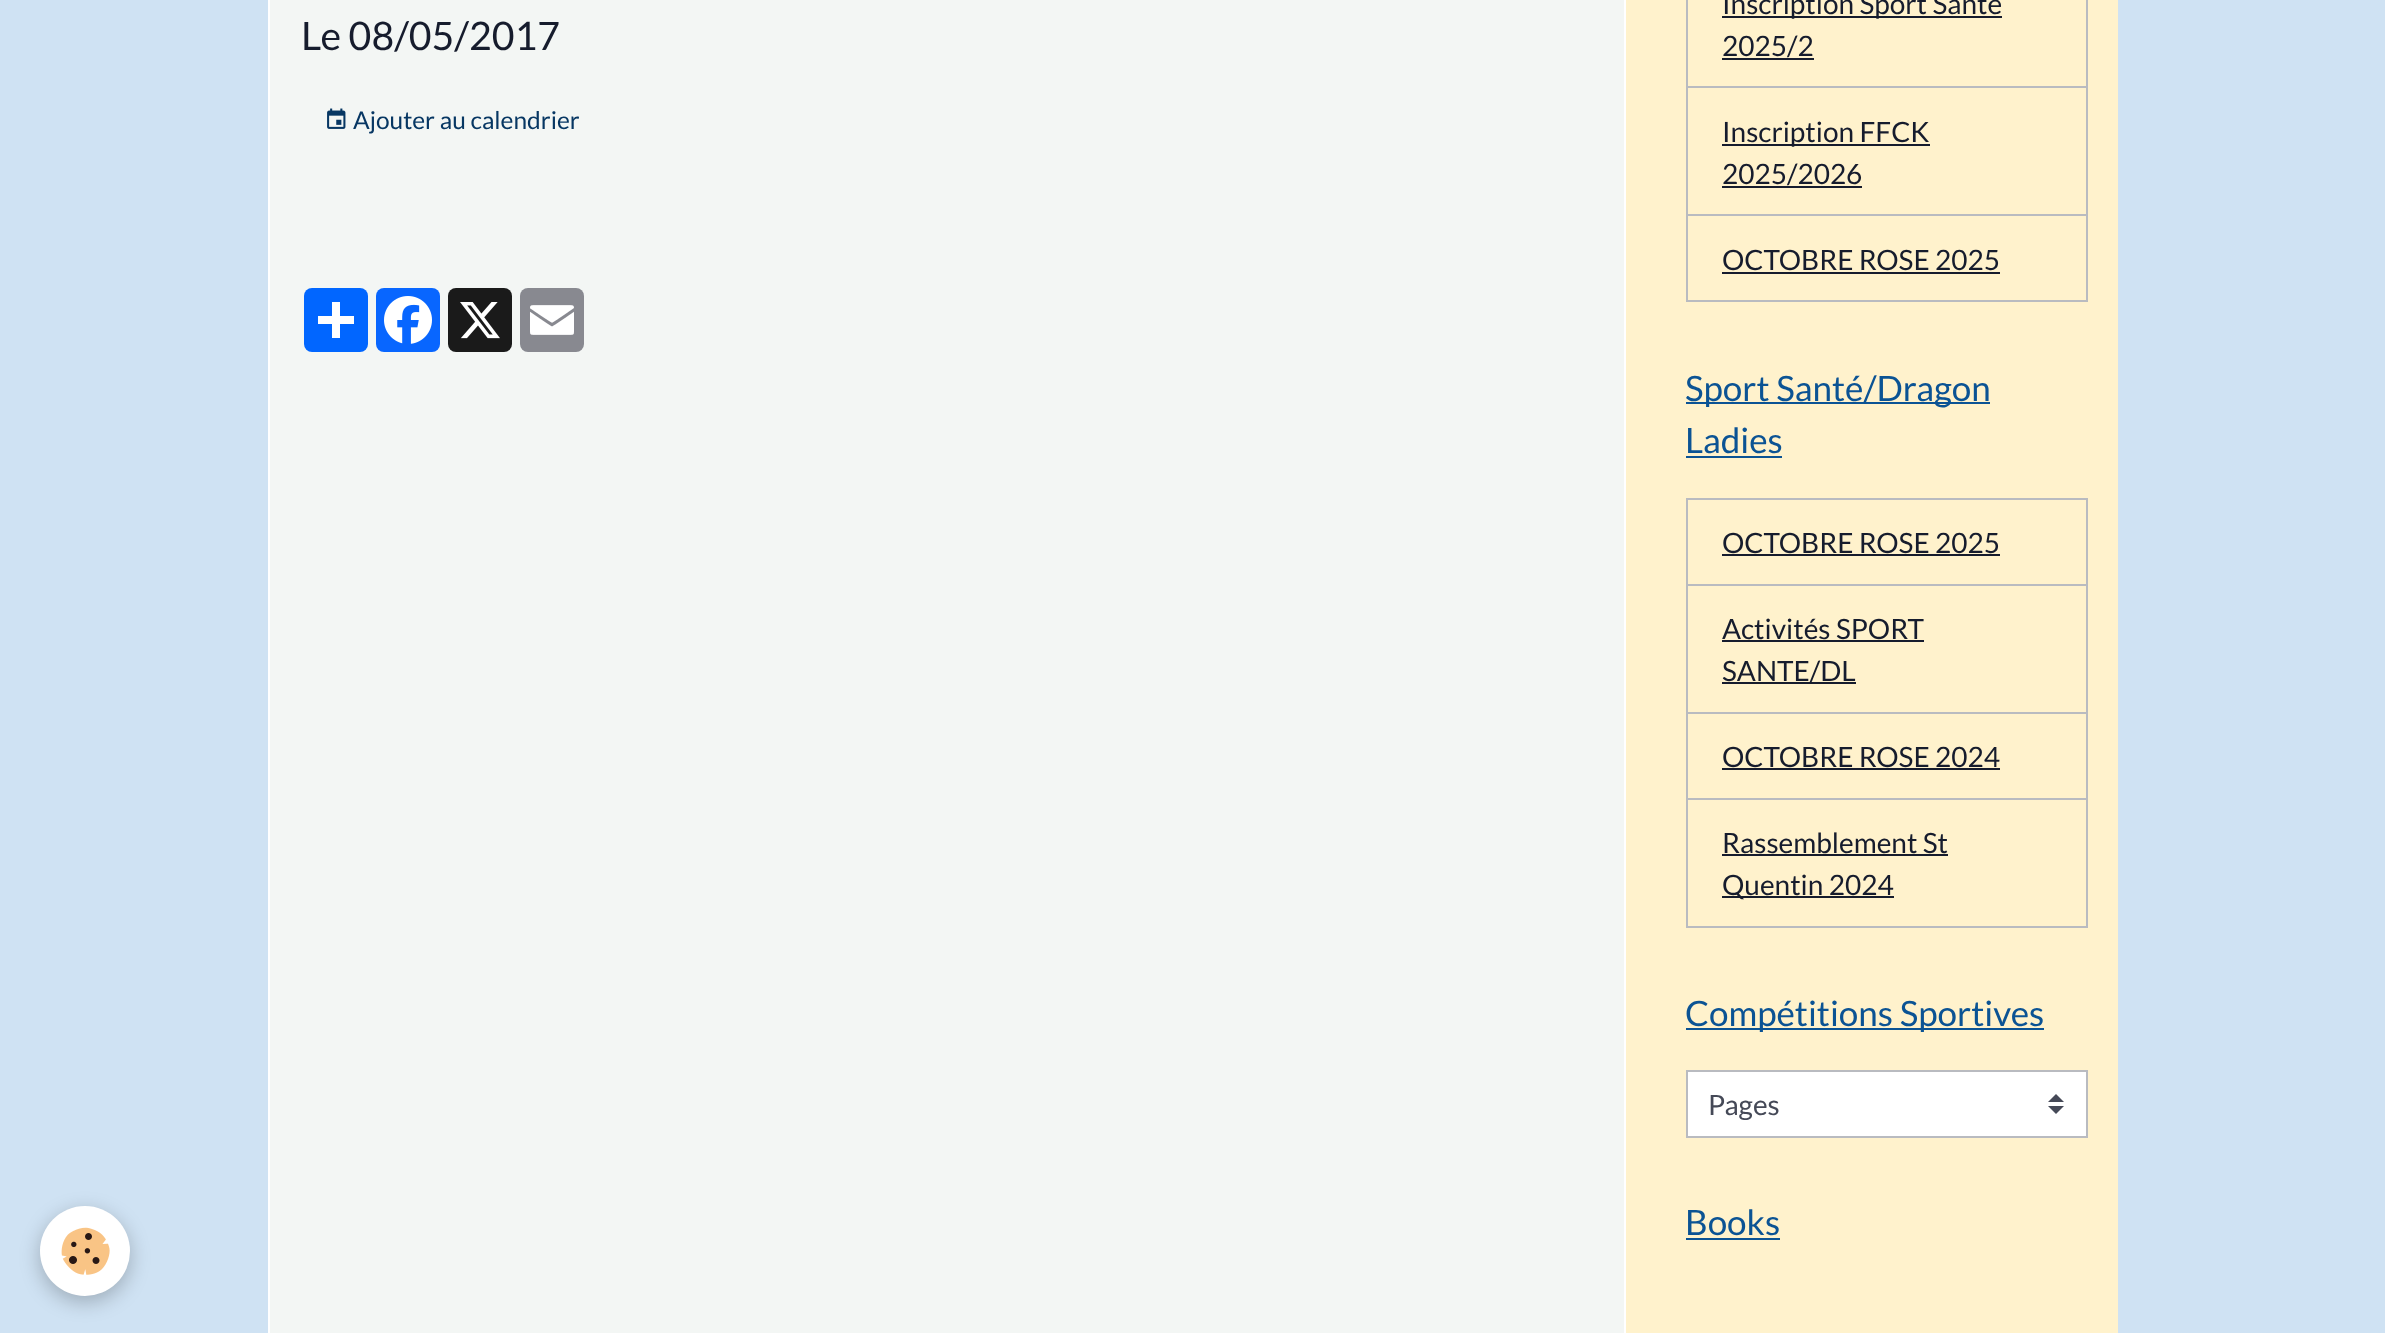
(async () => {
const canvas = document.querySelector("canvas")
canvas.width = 2385
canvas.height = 1333
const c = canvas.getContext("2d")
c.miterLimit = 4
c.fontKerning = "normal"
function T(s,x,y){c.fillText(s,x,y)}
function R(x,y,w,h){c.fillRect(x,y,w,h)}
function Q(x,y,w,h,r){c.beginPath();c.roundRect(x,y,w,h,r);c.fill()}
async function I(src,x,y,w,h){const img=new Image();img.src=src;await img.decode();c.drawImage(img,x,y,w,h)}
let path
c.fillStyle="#cfe2f3"
R(0,0,2385,1333)
c.fillStyle="#fff2cc"
R(1626,0,492,1333)
c.fillStyle="#f3f6f4"
c.beginPath()
c.rect(269,-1,1356,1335)
c.fill()
c.strokeStyle="#fff"
c.lineWidth=2
c.stroke()
c.font="39.25px Lato"
c.fillStyle="#161c2d"
T("Le 08/05/2017",301,50)
await I("1.png",327,108,19,21)
c.font="24.5px Lato"
c.fillStyle="#073763"
T("Ajouter au calendrier",353,129)
c.fillStyle="#0166ff"
Q(304,288,64,64,8)
c.fillStyle="#fff"
R(332,302,8,36)
R(318,316,36,8)
c.fillStyle="#0866ff"
Q(376,288,64,64,8)
await I("2.png",384,296,48,48)
c.fillStyle="#1a1a1a"
Q(448,288,64,64,8)
await I("3.png",460,302,40,37)
c.fillStyle="#888990"
Q(520,288,64,64,8)
await I("4.png",530,305,44,30)
c.strokeStyle="#b9bbc0"
c.strokeRect(1687,-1,400,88)
c.fillStyle="#161c2d"
R(1722,16,280,2)
c.font="28px Lato"
T("Inscription Sport Santé",1722,14)
T("2025/2",1722,56)
R(1722,58,92,2)
c.strokeRect(1687,87,400,128)
R(1722,144,208,2)
T("Inscription FFCK",1722,142)
T("2025/2026",1722,184)
R(1722,186,140,2)
c.strokeRect(1687,215,400,86)
T("OCTOBRE ROSE 2025",1722,270)
R(1722,272,278,2)
c.fillStyle="#0b5394"
R(1686,402,304,2)
c.font="35px Lato"
T("Sport Santé/Dragon",1685,401)
T("Ladies",1685,453)
R(1686,456,96,2)
c.strokeRect(1687,499,400,86)
c.font="28px Lato"
c.fillStyle="#161c2d"
T("OCTOBRE ROSE 2025",1722,553)
R(1722,554,278,2)
c.strokeRect(1687,585,400,128)
T("Activités SPORT",1722,639)
R(1722,640,202,2)
R(1722,682,134,2)
T("SANTE/DL",1722,681)
c.strokeRect(1687,713,400,86)
T("OCTOBRE ROSE 2024",1722,767)
R(1722,768,278,2)
c.strokeRect(1687,799,400,128)
T("Rassemblement St",1722,853)
R(1722,854,226,2)
R(1722,896,172,2)
T("Quentin 2024",1722,895)
c.fillStyle="#0b5394"
R(1686,1028,358,2)
c.font="35px Lato"
T("Compétitions Sportives",1685,1026)
c.fillStyle="#fff"
R(1688,1072,398,64)
c.fillStyle="#454957"
path = new Path2D("M2056 1094l-8 8h16zm0 20l-8-8h16z")
c.fill(path)
c.strokeRect(1687,1071,400,66)
c.font="28px Lato"
T("Pages",1708,1115)
c.font="35px Lato"
c.fillStyle="#0b5394"
T("Books",1685,1235)
R(1686,1238,94,2)
c.fillStyle="#0000003d"
c.filter="blur(10px)"
c.beginPath()
c.roundRect(40,1212,90,90,45)
c.fill()
c.filter="none"
c.fillStyle="#fff"
c.beginPath()
c.arc(85,1251,45,0,7)
c.fill()
await I("5.png",61,1227,49,48)
})()
